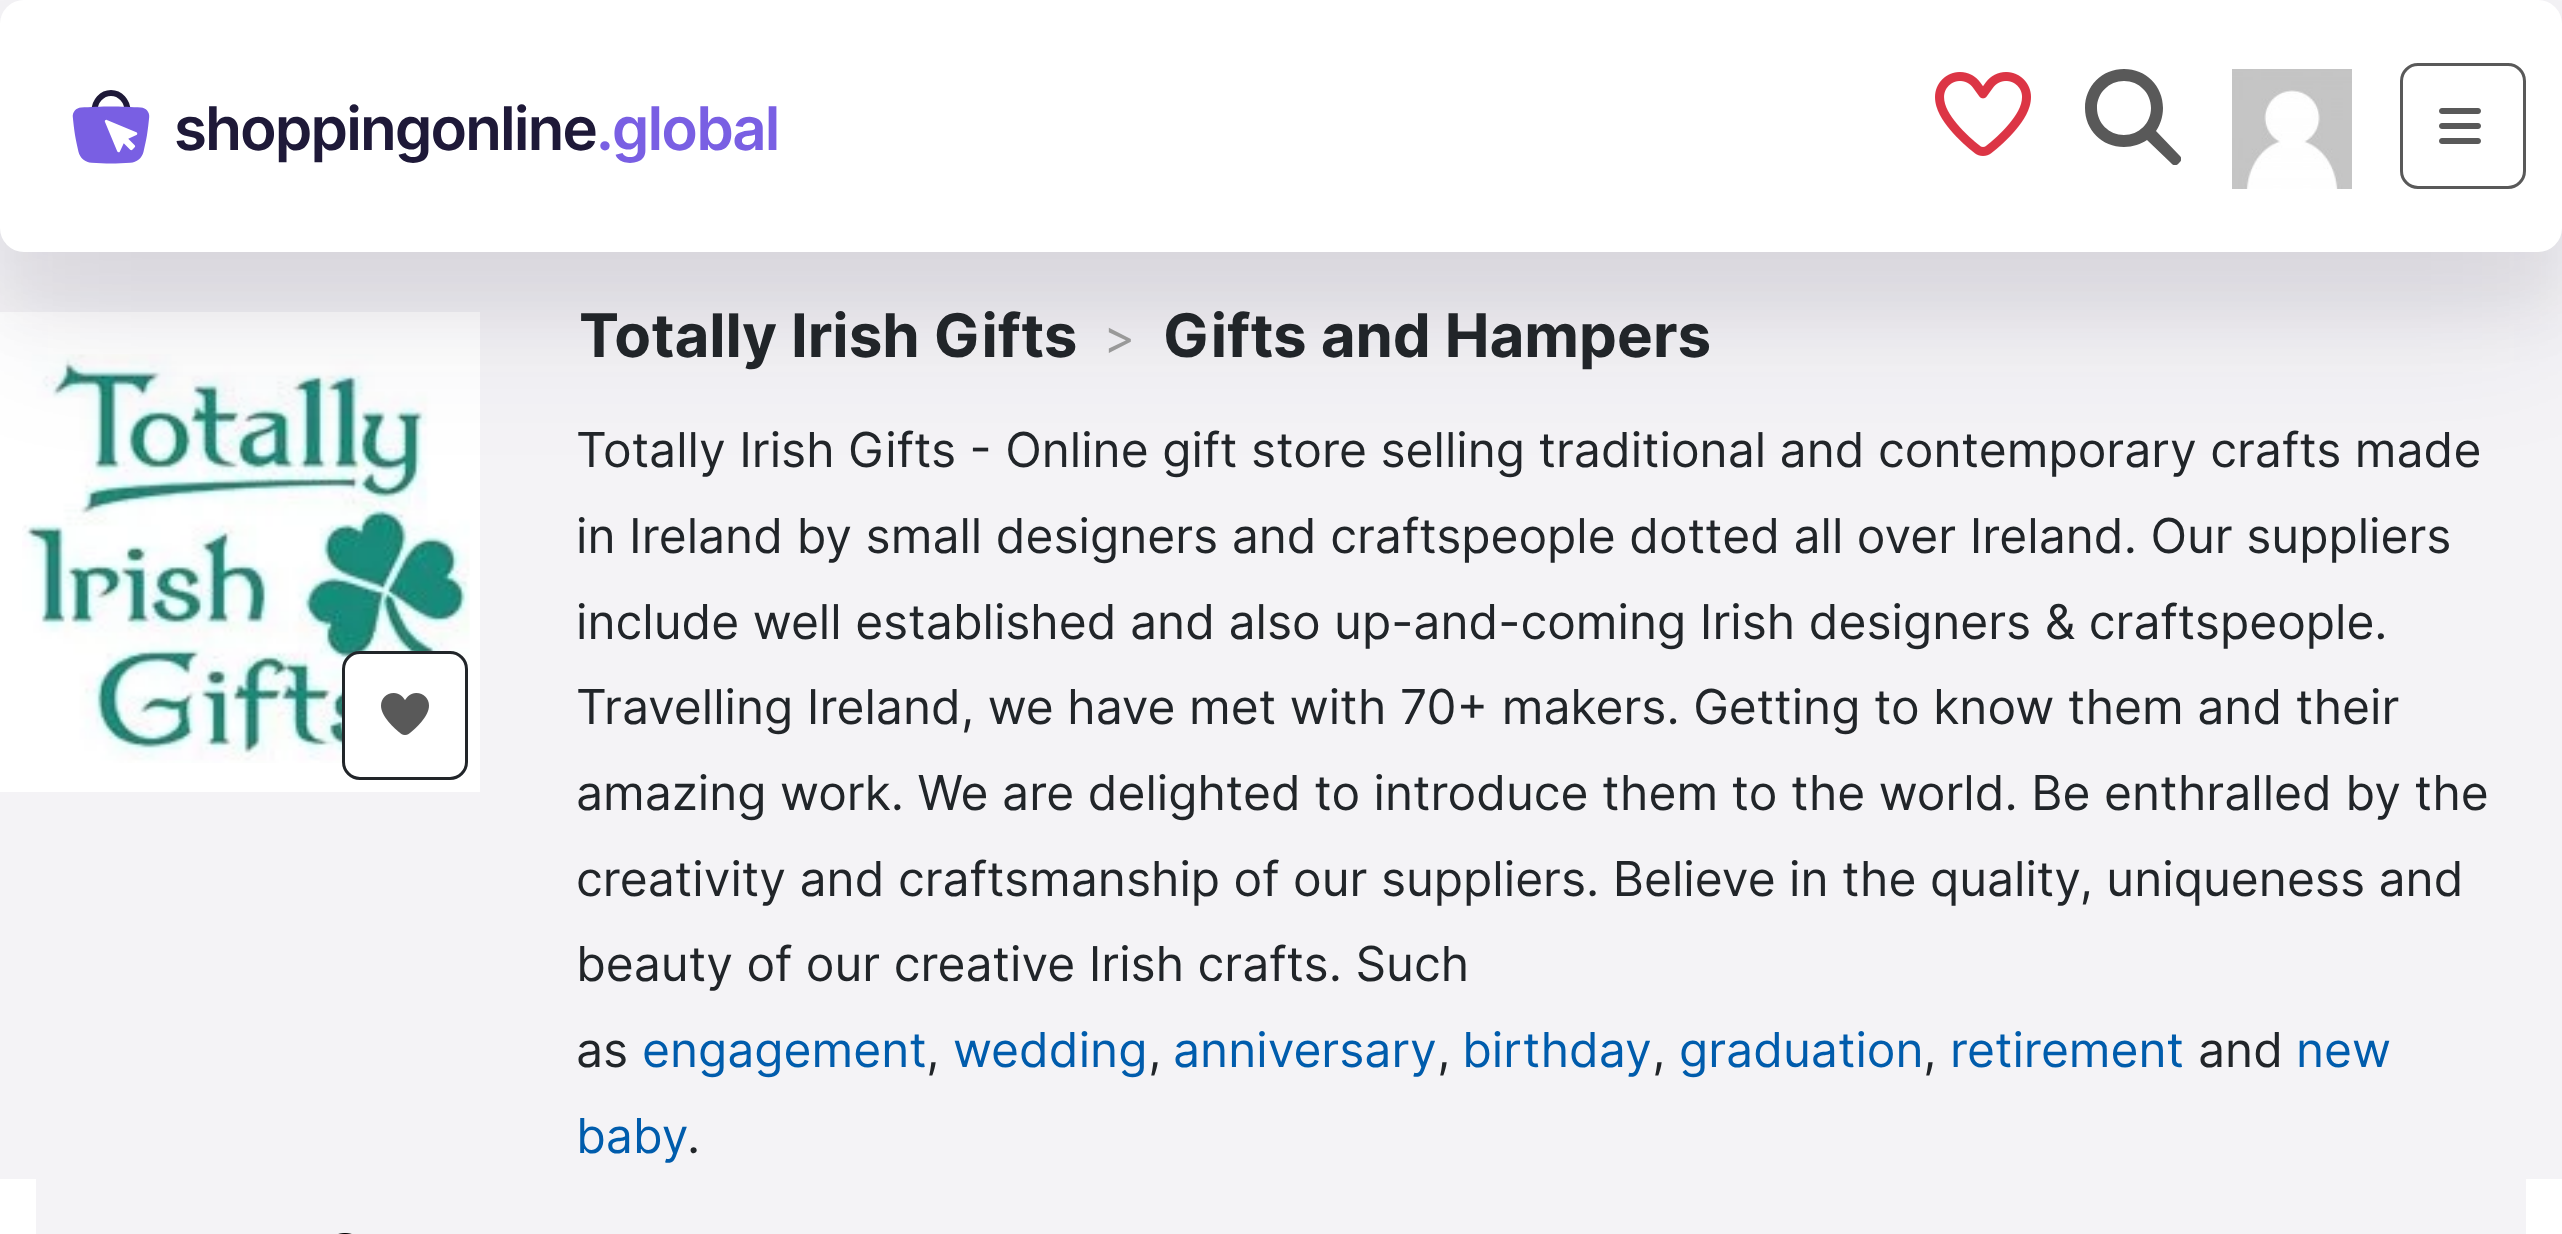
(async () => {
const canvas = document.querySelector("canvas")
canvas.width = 2562
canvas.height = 1234
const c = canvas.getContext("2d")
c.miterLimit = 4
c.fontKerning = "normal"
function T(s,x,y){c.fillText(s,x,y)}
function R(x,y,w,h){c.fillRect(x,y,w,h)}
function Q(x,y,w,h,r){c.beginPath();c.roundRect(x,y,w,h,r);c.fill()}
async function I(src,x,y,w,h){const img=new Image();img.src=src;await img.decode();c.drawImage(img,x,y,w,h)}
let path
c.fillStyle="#fff"
R(0,0,2562,1234)
c.fillStyle="#f4f3f6"
R(0,0,2562,1179)
c.fillStyle="#fff"
R(0,312,480,480)
await I("5.png",22,354,448,409)
c.fillStyle="#1e193814"
c.filter="blur(72px)"
c.beginPath()
c.roundRect(0,72,2562,252,24)
c.fill()
c.filter="none"
c.fillStyle="#1e19380f"
c.filter="blur(30px)"
c.beginPath()
c.roundRect(0,60,2562,252,24)
c.fill()
c.filter="none"
c.fillStyle="#fff"
Q(0,0,2562,252,24)
await I("1.png",72,90,705,74)
await I("2.png",1935,72,96,84)
c.save()
c.beginPath()
c.rect(2085,69,96,96)
c.clip()
c.fillStyle="#595959"
path = new Path2D("M2163 108c0 9-3 17-7 23l23 24c3 2 3 6 0 8c-2 3-6 3-8 0l-24-23c-6 4-14 7-23 7c-22 0-39-17-39-39c0-22 17-39 39-39c22 0 39 17 39 39zm-39 27c15 0 27-12 27-27c0-15-12-27-27-27c-15 0-27 12-27 27c0 15 12 27 27 27z")
c.fill(path)
c.restore()
await I("3.png",2232,69,120,120)
c.beginPath()
c.roundRect(2401.5,64.5,123,123,16.5)
c.strokeStyle="#595959"
c.lineWidth=3
c.stroke()
await I("4.png",2439,108,42,36)
c.beginPath()
c.roundRect(343.5,652.5,123,126,16.5)
c.fill()
c.strokeStyle="#212529"
c.stroke()
await I("6.png",381,693,48,42)
c.font="bold 60px Inter"
c.fillStyle="#212529"
T("Totally Irish Gifts",579,357)
c.font="48px Inter"
c.fillStyle="#999"
T(">",1104,354)
c.font="bold 60px Inter"
c.fillStyle="#212529"
T("Gifts and Hampers",1163,357)
c.font="48px Inter"
T("Totally Irish Gifts - Online gift store selling traditional and contemporary crafts made",576,467)
T("in Ireland by small designers and craftspeople dotted all over Ireland. Our suppliers",576,553)
T("include well established and also up-and-coming Irish designers & craftspeople.",576,639)
T("Travelling Ireland, we have met with 70+ makers. Getting to know them and their",576,724)
T("amazing work. We are delighted to introduce them to the world. Be enthralled by the",576,810)
T("creativity and craftsmanship of our suppliers. Believe in the quality, uniqueness and",576,896)
T("beauty of our creative Irish crafts. Such",576,981)
T("as",576,1067)
c.fillStyle="#005cac"
T("engagement",642,1067)
c.fillStyle="#212529"
T(",",926,1067)
c.fillStyle="#005cac"
T("wedding",953,1067)
c.fillStyle="#212529"
T(",",1148,1067)
c.fillStyle="#005cac"
T("anniversary",1173,1067)
c.fillStyle="#212529"
T(",",1437,1067)
c.fillStyle="#005cac"
T("birthday",1462,1067)
c.fillStyle="#212529"
T(",",1652,1067)
c.fillStyle="#005cac"
T("graduation",1679,1067)
c.fillStyle="#212529"
T(",",1923,1067)
c.fillStyle="#005cac"
T("retirement",1950,1067)
c.fillStyle="#212529"
T("and",2198,1067)
c.fillStyle="#005cac"
T("new",2296,1067)
T("baby",576,1153)
c.fillStyle="#212529"
T(".",687,1153)
c.fillStyle="#f4f3f6"
R(36,1179,2490,55)
await I("7.png",338,1233,14,1)
})()
